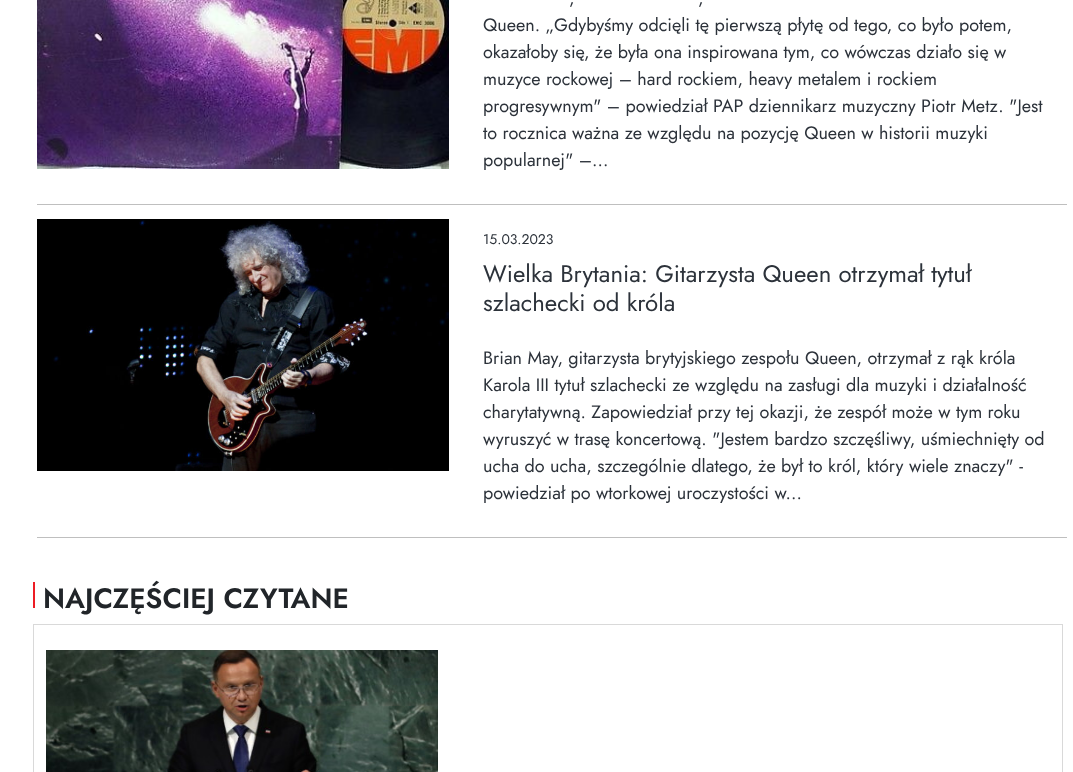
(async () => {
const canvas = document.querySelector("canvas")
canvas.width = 1073
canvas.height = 772
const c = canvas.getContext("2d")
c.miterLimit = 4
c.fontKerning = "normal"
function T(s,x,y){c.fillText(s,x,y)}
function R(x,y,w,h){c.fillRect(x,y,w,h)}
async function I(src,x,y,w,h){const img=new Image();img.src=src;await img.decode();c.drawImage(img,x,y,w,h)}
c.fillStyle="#fff"
R(0,0,1073,772)
c.fillStyle="#bfbfbf"
R(37,204,1030,1)
await I("1.png",37,0,412,169)
c.font="18px Jost"
c.fillStyle="#2c323a"
T(",",569,4)
T(",",698,4)
T("Queen. „Gdybyśmy odcięli tę pierwszą płytę od tego, co było potem,",483,31)
T("okazałoby się, że była ona inspirowana tym, co wówczas działo się w",483,58)
T("muzyce rockowej – hard rockiem, heavy metalem i rockiem",483,85)
T("progresywnym\" – powiedział PAP dziennikarz muzyczny Piotr Metz. \"Jest",483,112)
T("to rocznica ważna ze względu na pozycję Queen w historii muzyki",483,139)
T("popularnej\" –...",483,166)
c.fillStyle="#bfbfbf"
R(37,537,1030,1)
await I("2.png",37,219,412,252)
c.font="14px Jost"
c.fillStyle="#2c323a"
T("15.03.2023",483,244)
c.font="24px Jost"
T("Wielka Brytania: Gitarzysta Queen otrzymał tytuł",483,282)
T("szlachecki od króla",483,311)
c.font="18px Jost"
T("Brian May, gitarzysta brytyjskiego zespołu Queen, otrzymał z rąk króla",483,364)
T("Karola III tytuł szlachecki ze względu na zasługi dla muzyki i działalność",483,391)
T("charytatywną. Zapowiedział przy tej okazji, że zespół może w tym roku",483,418)
T("wyruszyć w trasę koncertową. \"Jestem bardzo szczęśliwy, uśmiechnięty od",483,445)
T("ucha do ucha, szczególnie dlatego, że był to król, który wiele znaczy\" -",483,472)
T("powiedział po wtorkowej uroczystości w...",483,499)
c.fillStyle="#ed1c24"
R(33,582,2,26)
c.font="600 28px Jost"
c.fillStyle="#212529"
T("NAJCZĘŚCIEJ CZYTANE",43,608)
c.strokeStyle="#d9d9d9"
c.strokeRect(33.5,624.5,1029,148)
await I("3.png",46,650,392,122)
})()
